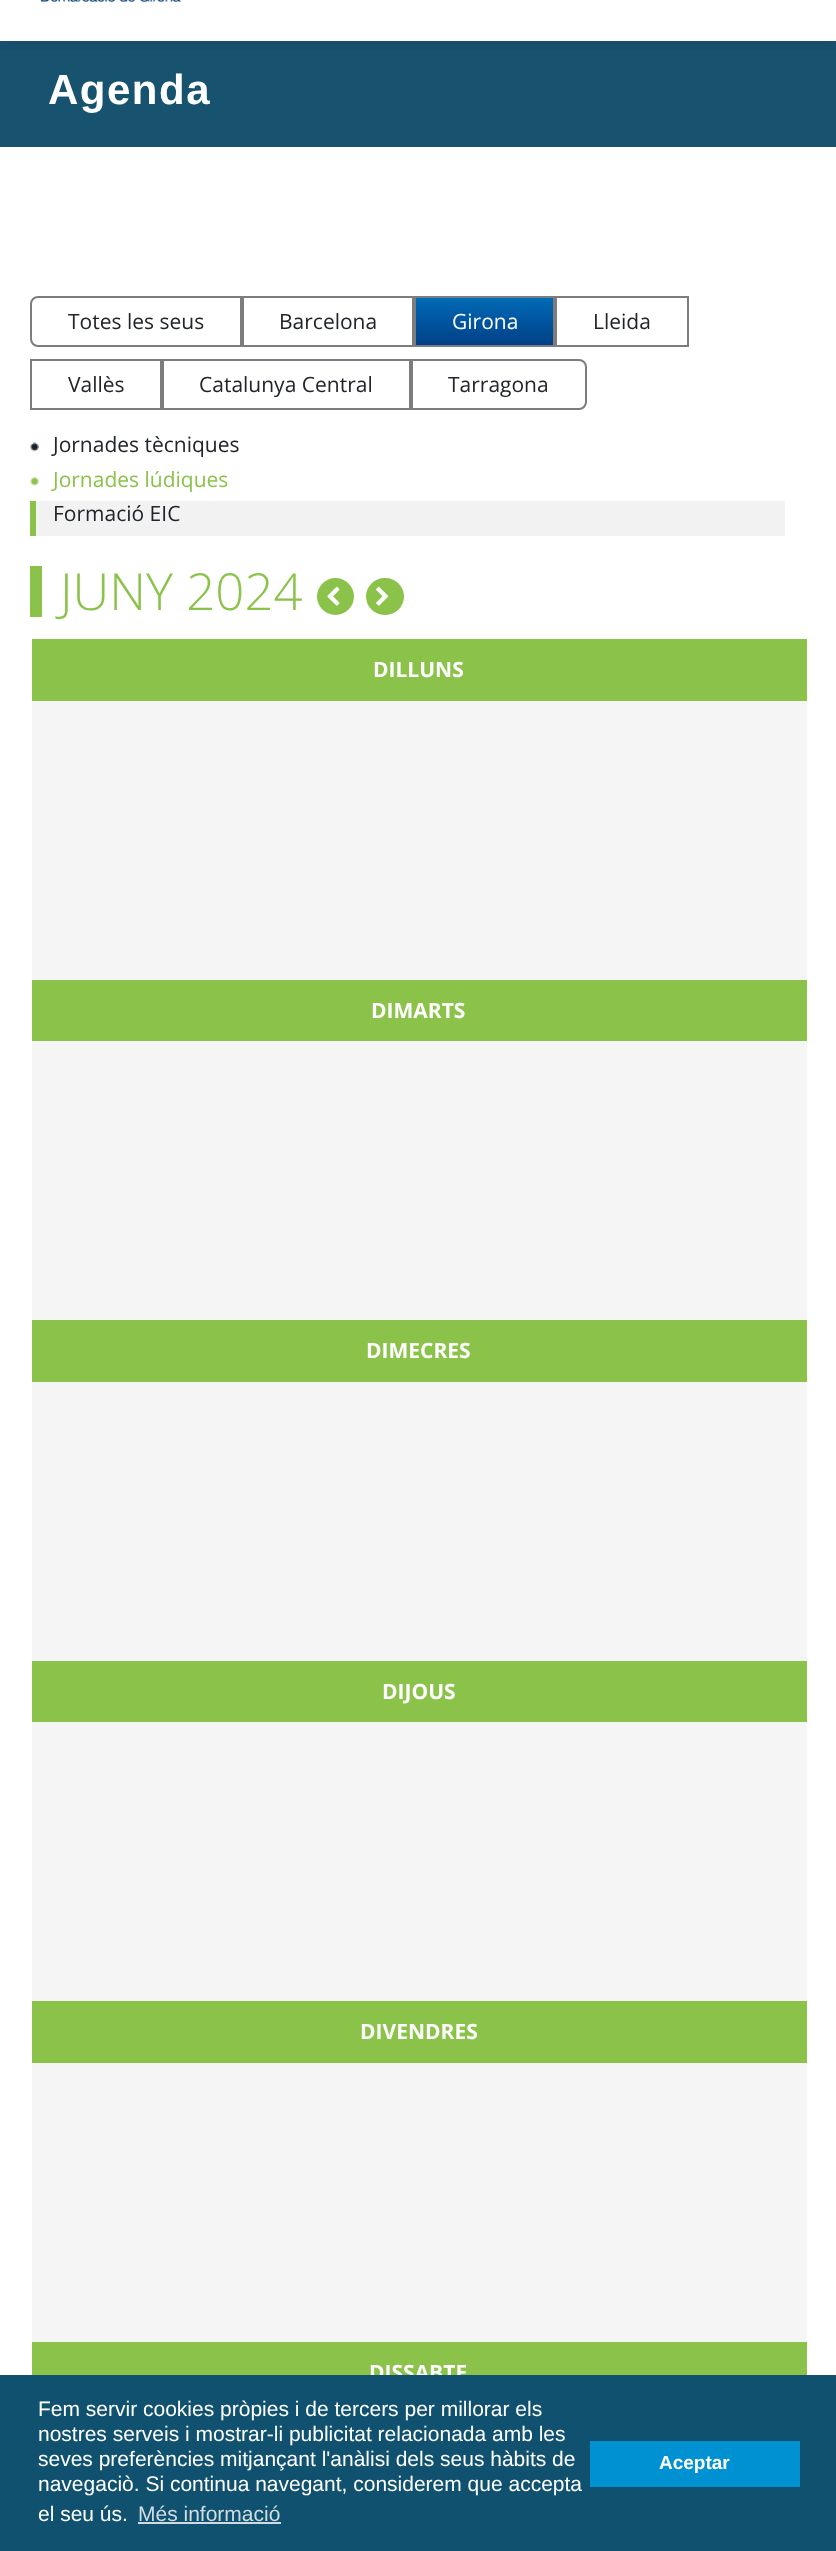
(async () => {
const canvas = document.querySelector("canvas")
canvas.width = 836
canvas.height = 2551
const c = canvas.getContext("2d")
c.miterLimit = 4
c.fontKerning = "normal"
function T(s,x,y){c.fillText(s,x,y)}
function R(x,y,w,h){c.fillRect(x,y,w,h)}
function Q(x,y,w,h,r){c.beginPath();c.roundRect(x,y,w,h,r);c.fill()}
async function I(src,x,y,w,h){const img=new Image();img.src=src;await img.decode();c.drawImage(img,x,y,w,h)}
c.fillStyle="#fff"
R(0,0,836,2551)
c.fillStyle="#17526e"
R(0,41,836,106)
c.save()
c.beginPath()
c.rect(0,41,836,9)
c.clip()
c.fillStyle="#0000001a"
c.filter="blur(11px)"
c.beginPath()
c.rect(0,-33,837,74)
c.fill()
c.filter="none"
c.restore()
await I("1.png",40,0,141,3)
c.fillStyle="#fff"
R(0,39,836,2)
c.letterSpacing="1.5px"
c.font="bold 42px Liberation Sans"
T("Agenda",48,104)
c.beginPath()
c.roundRect(31,297,210,49,[7,0,0,7])
c.strokeStyle="#7d7d7d"
c.lineWidth=2
c.stroke()
c.letterSpacing="0px"
c.font="21px Open Sans"
c.fillStyle="#21252b"
T("Totes les seus",68,329)
c.strokeRect(243,297,170,49)
T("Barcelona",279,329)
await I("2.png",416,298,137,47)
c.strokeRect(415,297,139,49)
c.fillStyle="#fff"
T("Girona",452,329)
c.strokeRect(556,297,132,49)
c.fillStyle="#21252b"
T("Lleida",593,329)
c.strokeRect(31,360,130,49)
T("Vallès",68,392)
c.strokeRect(163,360,247,49)
T("Catalunya Central",199,392)
c.beginPath()
c.roundRect(412,360,174,49,[0,7,7,0])
c.stroke()
T("Tarragona",448,392)
await I("3.png",30,442,9,10)
T("Jornades tècniques",53,452)
await I("4.png",30,477,9,9)
c.fillStyle="#8bc34a"
T("Jornades lúdiques",53,487)
c.fillStyle="#f2f2f2"
R(36,501,749,35)
c.fillStyle="#8bc34a"
R(30,501,6,35)
c.fillStyle="#21252b"
T("Formació EIC",53,521)
c.fillStyle="#8bc34a"
R(30,566,12,51)
c.font="300 51px Open Sans"
T("JUNY 2024",60,610)
c.beginPath()
c.arc(335.5,596.5,18.5,0,7)
c.fill()
await I("5.png",327,586,13,20)
Q(366,578,38,37,18.5)
await I("6.png",376,586,13,20)
R(32,639,775,62)
c.font="bold 21px Open Sans"
c.fillStyle="#fff"
T("DILLUNS",373,677)
c.fillStyle="#f5f5f5"
R(32,701,775,279)
c.fillStyle="#8bc34a"
R(32,980,775,61)
c.fillStyle="#fff"
T("DIMARTS",371,1018)
c.fillStyle="#f5f5f5"
R(32,1041,775,279)
c.fillStyle="#8bc34a"
R(32,1320,775,62)
c.fillStyle="#fff"
T("DIMECRES",366,1358)
c.fillStyle="#f5f5f5"
R(32,1382,775,279)
c.fillStyle="#8bc34a"
R(32,1661,775,61)
c.fillStyle="#fff"
T("DIJOUS",382,1699)
c.fillStyle="#f5f5f5"
R(32,1722,775,279)
c.fillStyle="#8bc34a"
R(32,2001,775,62)
c.fillStyle="#fff"
T("DIVENDRES",360,2039)
c.fillStyle="#f5f5f5"
R(32,2063,775,279)
c.fillStyle="#8bc34a"
R(32,2342,775,33)
c.fillStyle="#fff"
T("DISSABTE",369,2380)
c.fillStyle="#10516f"
R(0,2375,836,176)
c.font="21px Liberation Sans"
c.fillStyle="#fff"
T("Fem servir cookies pròpies i de tercers per millorar els",38,2416)
T("nostres serveis i mostrar-li publicitat relacionada amb les",38,2441)
T("seves preferències mitjançant l'anàlisi dels seus hàbits de",38,2466)
T("navegaciò. Si continua navegant, considerem que accepta",38,2491)
T("el seu ús.",38,2521)
c.fillStyle="#cfdce2"
T("Més informació",138,2521)
R(138,2522,143,2)
c.fillStyle="#0091d2"
R(590,2441,210,46)
c.font="bold 19px Liberation Sans"
c.fillStyle="#fff"
T("Aceptar",659,2469)
})()
